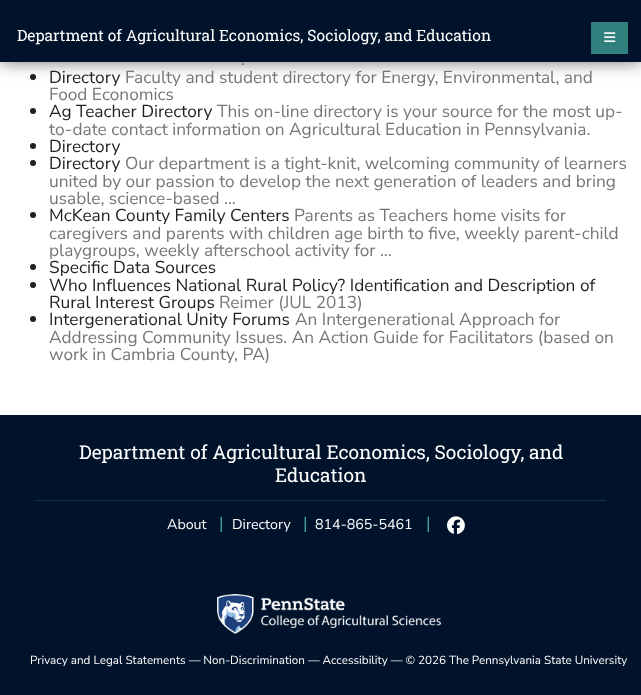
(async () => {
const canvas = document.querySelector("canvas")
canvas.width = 641
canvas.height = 695
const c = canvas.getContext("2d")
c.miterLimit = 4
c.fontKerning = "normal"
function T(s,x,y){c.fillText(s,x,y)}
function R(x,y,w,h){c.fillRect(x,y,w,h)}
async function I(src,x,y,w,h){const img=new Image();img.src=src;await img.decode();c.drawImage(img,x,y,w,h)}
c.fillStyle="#fff"
R(0,0,641,695)
c.fillStyle="#231e20"
c.beginPath()
c.arc(33,77,3,0,7)
c.fill()
c.fillStyle="#54585ad9"
c.filter="blur(8.5px)"
c.beginPath()
c.rect(0,0,641,62)
c.fill()
c.filter="none"
c.fillStyle="#00132b"
R(0,0,641,62)
c.font="15.6px Roboto Slab"
c.fillStyle="#fff"
T("Department of Agricultural Economics, Sociology, and Education",17,41)
c.fillStyle="#32807d"
R(591,22,37,32)
await I("1.png",604,32,12,10)
c.font="17.3px Nunito Sans"
c.fillStyle="#767676"
T(".",241,65)
c.fillStyle="#231e20"
T("Directory",49,83)
c.fillStyle="#767676"
T("Faculty and student directory for Energy, Environmental, and",125,83)
T("Food Economics",49,100)
c.fillStyle="#231e20"
c.beginPath()
c.arc(33,111,3,0,7)
c.fill()
T("Ag Teacher Directory",49,117)
c.fillStyle="#767676"
T("This on-line directory is your source for the most up-",217,117)
T("to-date contact information on Agricultural Education in Pennsylvania.",49,135)
c.fillStyle="#231e20"
c.beginPath()
c.arc(33,146,3,0,7)
c.fill()
T("Directory",49,152)
c.beginPath()
c.arc(33,163,3,0,7)
c.fill()
T("Directory",49,169)
c.fillStyle="#767676"
T("Our department is a tight-knit, welcoming community of learners",125,169)
T("united by our passion to develop the next generation of leaders and bring",49,187)
T("usable, science-based ...",49,204)
c.fillStyle="#231e20"
c.beginPath()
c.arc(33,215,3,0,7)
c.fill()
T("McKean County Family Centers",49,221)
c.fillStyle="#767676"
T("Parents as Teachers home visits for",294,221)
T("caregivers and parents with children age birth to five, weekly parent-child",49,239)
T("playgroups, weekly afterschool activity for ...",49,256)
c.fillStyle="#231e20"
c.beginPath()
c.arc(33,267,3,0,7)
c.fill()
T("Specific Data Sources",49,273)
c.beginPath()
c.arc(33,285,3,0,7)
c.fill()
T("Who Influences National Rural Policy? Identification and Description of",49,291)
T("Rural Interest Groups",49,308)
c.fillStyle="#767676"
T("Reimer (JUL 2013)",219,308)
c.fillStyle="#231e20"
c.beginPath()
c.arc(33,319,3,0,7)
c.fill()
T("Intergenerational Unity Forums",49,325)
c.fillStyle="#767676"
T("An Intergenerational Approach for",295,325)
T("Addressing Community Issues. An Action Guide for Facilitators (based on",49,343)
T("work in Cambria County, PA)",49,360)
c.fillStyle="#00132b"
R(0,415,641,280)
c.fillStyle="#103748"
R(35,500,571,1)
c.font="19.1px Roboto Slab"
c.fillStyle="#fff"
T("Department of Agricultural Economics, Sociology, and",79,459)
T("Education",275,482)
c.font="14.25px Nunito Sans"
T("About",167,529)
c.font="17.3px Nunito Sans"
c.fillStyle="#3ea39e"
T("|",219,529)
c.font="14.25px Nunito Sans"
c.fillStyle="#fff"
T("Directory",232,529)
c.font="17.3px Nunito Sans"
c.fillStyle="#3ea39e"
T("|",303,529)
c.font="14.25px Nunito Sans"
c.fillStyle="#fff"
T("814-865-5461",315,529)
c.font="17.3px Nunito Sans"
c.fillStyle="#3ea39e"
T("|",426,529)
await I("2.png",447,516,18,19)
await I("3.png",217,594,224,40)
c.font="11.7px Nunito Sans"
c.fillStyle="#fff"
T("Privacy and Legal Statements — Non-Discrimination — Accessibility — © 2026 The Pennsylvania State University",30,664)
})()
